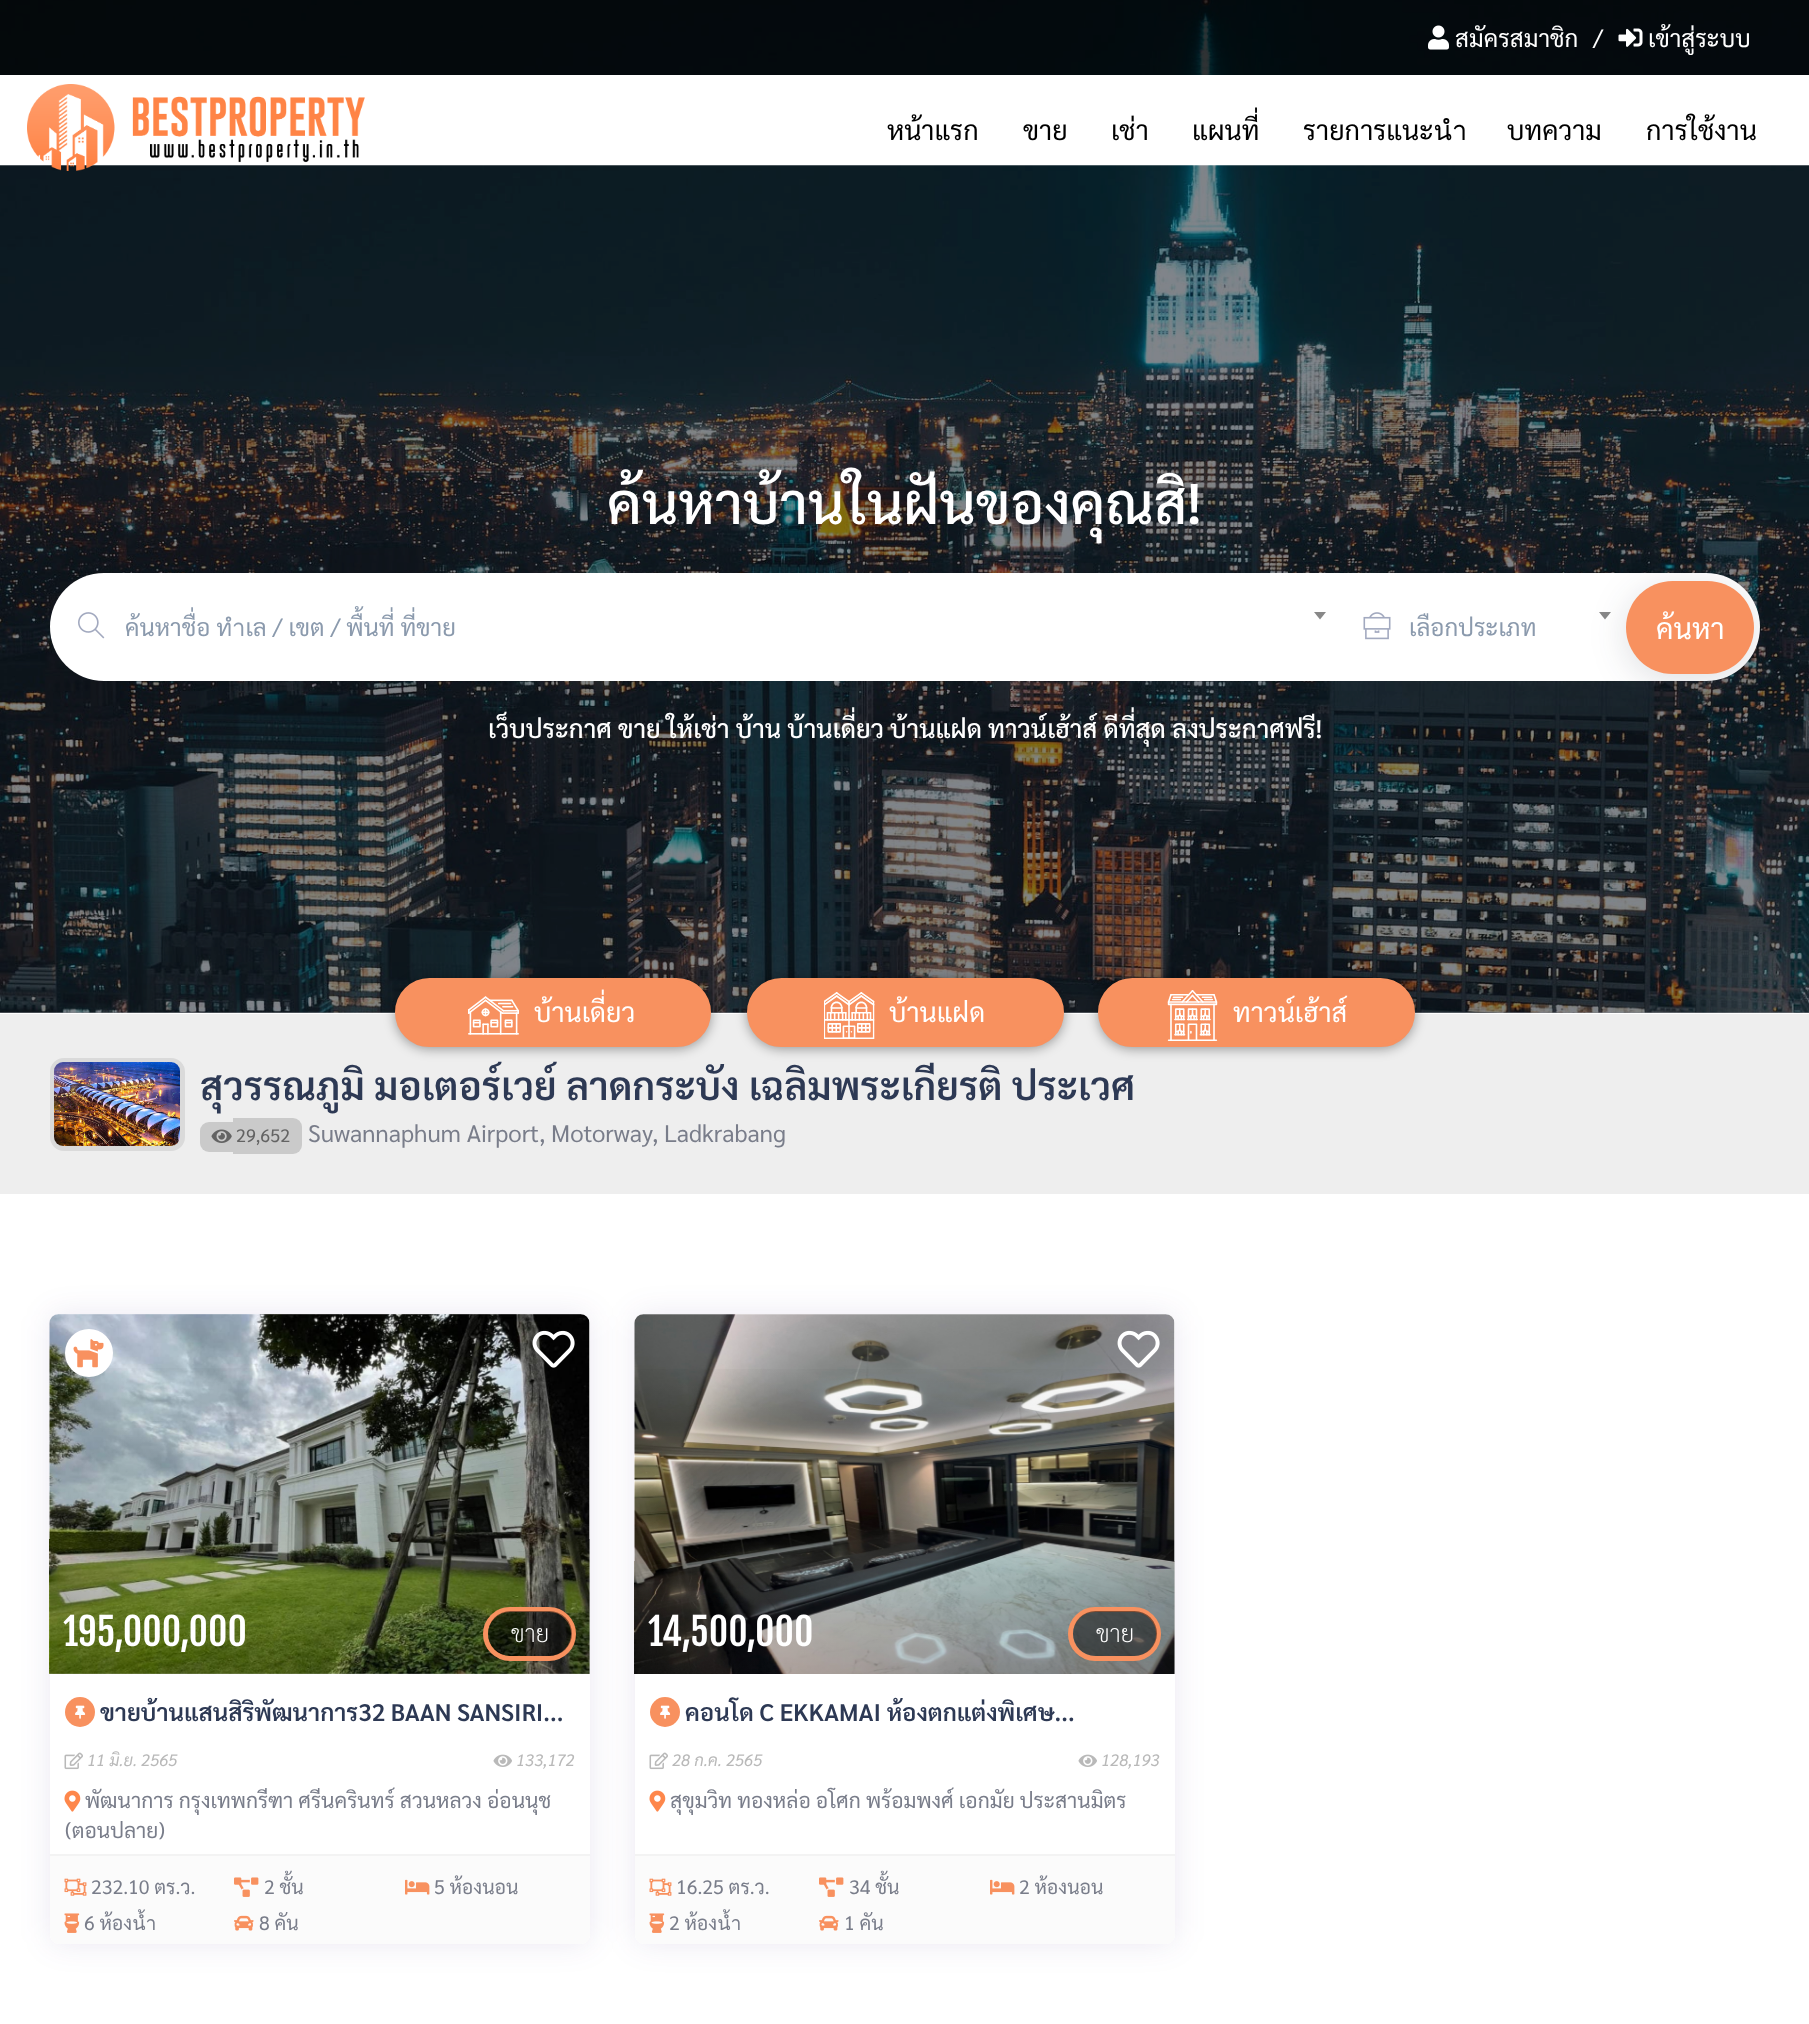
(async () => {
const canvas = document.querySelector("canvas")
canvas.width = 1809
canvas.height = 2024
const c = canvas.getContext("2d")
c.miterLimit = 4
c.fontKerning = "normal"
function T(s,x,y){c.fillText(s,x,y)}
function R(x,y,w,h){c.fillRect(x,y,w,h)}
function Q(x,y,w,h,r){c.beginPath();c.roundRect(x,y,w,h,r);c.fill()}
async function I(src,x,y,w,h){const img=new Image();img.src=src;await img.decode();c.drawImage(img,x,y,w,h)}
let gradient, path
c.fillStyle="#fff"
R(0,0,1809,2024)
c.fillStyle="#81858a"
R(0,1012,1809,1)
await I("4.png",0,0,1809,1013)
c.fillStyle="#0000009e"
R(0,0,1809,75)
await I("1.png",1428,25,21,25)
c.font="24px Sarabun"
c.fillStyle="#fff"
T("สมัครสมาชิก",1455,47)
T("/",1593,47)
await I("2.png",1618,28,25,19)
T("เข้าสู่ระบบ",1648,47)
R(0,75,1809,90)
c.fillStyle="#ffffff45"
R(0,165,1809,1)
await I("3.png",27,84,338,87)
c.font="27px Sarabun"
c.fillStyle="#000"
T("หน้าแรก",887,140)
T("ขาย",1023,140)
T("เช่า",1111,140)
T("แผนที่",1192,140)
T("รายการแนะนำ",1303,140)
T("บทความ",1507,140)
T("การใช้งาน",1646,140)
c.font="500 57px Sarabun"
c.fillStyle="#fff"
T("ค้นหาบ้านในฝันของคุณสิ!",607,524)
Q(50,573,1710,108,54)
await I("5.png",78,612,27,27)
c.save()
c.beginPath()
c.rect(125,581,1225,93)
c.clip()
c.font="24px Sarabun"
c.fillStyle="#8b9aad"
T("ค้นหาชื่อ ทำเล / เขต / พื้นที่ ที่ขาย",125,636)
c.restore()
c.fillStyle="#888"
path = new Path2D("M1314 612h12l-6 7.5z")
c.fill(path)
await I("6.png",1363,612,28,28)
c.save()
c.beginPath()
c.rect(1410,581,225,93)
c.clip()
c.font="24px Sarabun"
c.fillStyle="#8b9aad"
T("เลือกประเภท",1409,636)
c.restore()
path = new Path2D("M1599 612h12l-6 7.5z")
c.fill(path)
c.fillStyle="#1f253b26"
c.filter="blur(18px)"
c.beginPath()
c.roundRect(1626,588,128,93,46.5)
c.fill()
c.filter="none"
c.fillStyle="#f8915f"
Q(1626,581,128,93,46.5)
c.font="29px Sarabun"
c.fillStyle="#fff"
T("ค้นหา",1656,639)
c.font="500 25.5px Sarabun"
T("เว็บประกาศ ขาย ให้เช่า บ้าน บ้านเดี่ยว บ้านแฝด ทาวน์เฮ้าส์ ดีที่สุด ลงประกาศฟรี!",488,738)
c.fillStyle="#eee"
R(0,1014,1809,180)
c.fillStyle="#0000005c"
c.filter="blur(6px)"
c.beginPath()
c.roundRect(395,980,316,69,34.5)
c.fill()
c.filter="none"
c.fillStyle="#f8915f"
c.beginPath()
c.roundRect(396.5,979.5,313,66,33)
c.fill()
c.strokeStyle="#f8915f"
c.lineWidth=3
c.stroke()
await I("7.png",468,996,51,39)
c.font="27px Sarabun"
c.fillStyle="#fff"
T("บ้านเดี่ยว",534,1022)
c.fillStyle="#0000005c"
c.filter="blur(6px)"
c.beginPath()
c.roundRect(747,980,317,69,34.5)
c.fill()
c.filter="none"
c.fillStyle="#f8915f"
c.beginPath()
c.roundRect(748.5,979.5,314,66,33)
c.fill()
c.stroke()
await I("8.png",824,992,51,47)
c.fillStyle="#fff"
T("บ้านแฝด",889,1022)
c.fillStyle="#0000005c"
c.filter="blur(6px)"
c.beginPath()
c.roundRect(1098,980,317,69,34.5)
c.fill()
c.filter="none"
c.fillStyle="#f8915f"
c.beginPath()
c.roundRect(1099.5,979.5,314,66,33)
c.fill()
c.stroke()
await I("9.png",1167,990,51,51)
c.fillStyle="#fff"
T("ทาวน์เฮ้าส์",1233,1022)
c.beginPath()
c.roundRect(52.5,1060.5,130,88,11.5)
c.strokeStyle="#dadada"
c.lineWidth=5
c.stroke()
await I("10.png",54,1062,126,84)
c.font="600 39px Sarabun"
c.fillStyle="#2d3954"
T("สุวรรณภูมิ มอเตอร์เวย์ ลาดกระบัง เฉลิมพระเกียรติ ประเวศ",200,1100)
c.fillStyle="#cacaca"
c.beginPath()
c.roundRect(200,1122,33,30,[9,0,0,9])
c.fill()
c.beginPath()
c.roundRect(233,1118,69,36,[0,9,9,0])
c.fill()
await I("11.png",211,1129,21,14)
c.font="18px Sarabun"
c.fillStyle="#636363"
T("29,652",236,1142)
c.font="24px Sarabun"
c.fillStyle="#797d8a"
T("Suwannaphum Airport, Motorway, Ladkrabang",308,1142)
c.fillStyle="#3e1c831a"
c.filter="blur(15px)"
c.beginPath()
c.roundRect(50,1314,540,630,9)
c.fill()
c.filter="none"
c.fillStyle="#fff"
Q(50,1314,540,630,9)
await I("12.png",49,1314,541,360)
gradient = c.createLinearGradient(319,1314,320,1674)
gradient.addColorStop(.05,"#00000000")
gradient.addColorStop(1,"#00000033")
c.fillStyle = gradient
R(50,1368,540,306)
c.fillStyle="#fff"
c.beginPath()
c.arc(89,1353,24,0,7)
c.fill()
await I("13.png",73,1339,31,29)
await I("14.png",532,1330,43,38)
c.font="37.5px Fjalla One"
T("195,000,000",63,1646)
c.beginPath()
c.roundRect(485.5,1609.5,88,49,24.5)
c.strokeStyle="#f8915f"
c.stroke()
c.fillStyle="#00000078"
Q(488,1611,84,45,22.5)
c.font="200 24px Sarabun"
c.fillStyle="#fff"
T("ขาย",511,1642)
c.fillStyle="#f8915f"
c.beginPath()
c.arc(80,1712,15,0,7)
c.fill()
await I("15.png",75,1705,11,15)
c.font="600 24px Sarabun"
c.fillStyle="#2d3954"
T("ขายบ้านแสนสิริพัฒนาการ32 BAAN SANSIRI...",100,1721)
await I("16.png",64,1752,19,18)
c.font="italic 16.5px Sarabun"
c.fillStyle="#b9b9b9"
T("11 มิ.ย. 2565",87,1766)
await I("17.png",493,1754,19,13)
T("133,172",516,1766)
await I("18.png",64,1790,17,22)
c.font="21px Sarabun"
c.fillStyle="#797d8a"
T("พัฒนาการ กรุงเทพกรีฑา ศรีนครินทร์ สวนหลวง อ่อนนุช",85,1808)
T("(ตอนปลาย)",65,1838)
c.fillStyle="#fbfbfb"
c.beginPath()
c.roundRect(50,1854,540,90,[0,0,9,9])
c.fill()
c.fillStyle="#f3f3f3"
R(50,1854,540,2)
await I("19.png",64,1878,23,18)
c.font="19.5px Sarabun"
c.fillStyle="#797d8a"
T("232.10 ตร.ว.",91,1894)
await I("20.png",234,1877,25,20)
T("2 ชั้น",264,1894)
await I("21.png",405,1879,25,16)
T("5 ห้องนอน",434,1894)
await I("22.png",64,1913,16,20)
T("6 ห้องน้ำ",84,1930)
await I("23.png",234,1915,20,16)
T("8 คัน",259,1930)
c.fillStyle="#3e1c831a"
c.filter="blur(15px)"
c.beginPath()
c.roundRect(635,1314,540,630,9)
c.fill()
c.filter="none"
c.fillStyle="#fff"
Q(635,1314,540,630,9)
await I("24.png",634,1314,541,360)
gradient = c.createLinearGradient(905,1314,905,1674)
gradient.addColorStop(.05,"#00000000")
gradient.addColorStop(1,"#00000033")
c.fillStyle = gradient
R(635,1369,540,305)
await I("25.png",1117,1330,43,38)
c.font="37.5px Fjalla One"
c.fillStyle="#fff"
T("14,500,000",648,1646)
c.beginPath()
c.roundRect(1070.5,1609.5,88,49,24.5)
c.stroke()
c.fillStyle="#00000078"
Q(1073,1611,84,45,22.5)
c.font="200 24px Sarabun"
c.fillStyle="#fff"
T("ขาย",1096,1642)
c.fillStyle="#f8915f"
c.beginPath()
c.arc(665,1712,15,0,7)
c.fill()
await I("15.png",660,1705,11,15)
c.font="600 24px Sarabun"
c.fillStyle="#2d3954"
T("คอนโด C EKKAMAI ห้องตกแต่งพิเศษ...",685,1721)
await I("16.png",649,1752,19,18)
c.font="italic 16.5px Sarabun"
c.fillStyle="#b9b9b9"
T("28 ก.ค. 2565",672,1766)
await I("17.png",1078,1754,19,13)
T("128,193",1101,1766)
await I("18.png",649,1790,17,22)
c.font="21px Sarabun"
c.fillStyle="#797d8a"
T("สุขุมวิท ทองหล่อ อโศก พร้อมพงศ์ เอกมัย ประสานมิตร",670,1808)
c.fillStyle="#fbfbfb"
c.beginPath()
c.roundRect(635,1854,540,90,[0,0,9,9])
c.fill()
c.fillStyle="#f3f3f3"
R(635,1854,540,2)
await I("19.png",649,1878,23,18)
c.font="19.5px Sarabun"
c.fillStyle="#797d8a"
T("16.25 ตร.ว.",676,1894)
await I("20.png",819,1877,25,20)
T("34 ชั้น",849,1894)
await I("21.png",990,1879,25,16)
T("2 ห้องนอน",1019,1894)
await I("22.png",649,1913,16,20)
T("2 ห้องน้ำ",669,1930)
await I("23.png",819,1915,20,16)
T("1 คัน",844,1930)
})()
